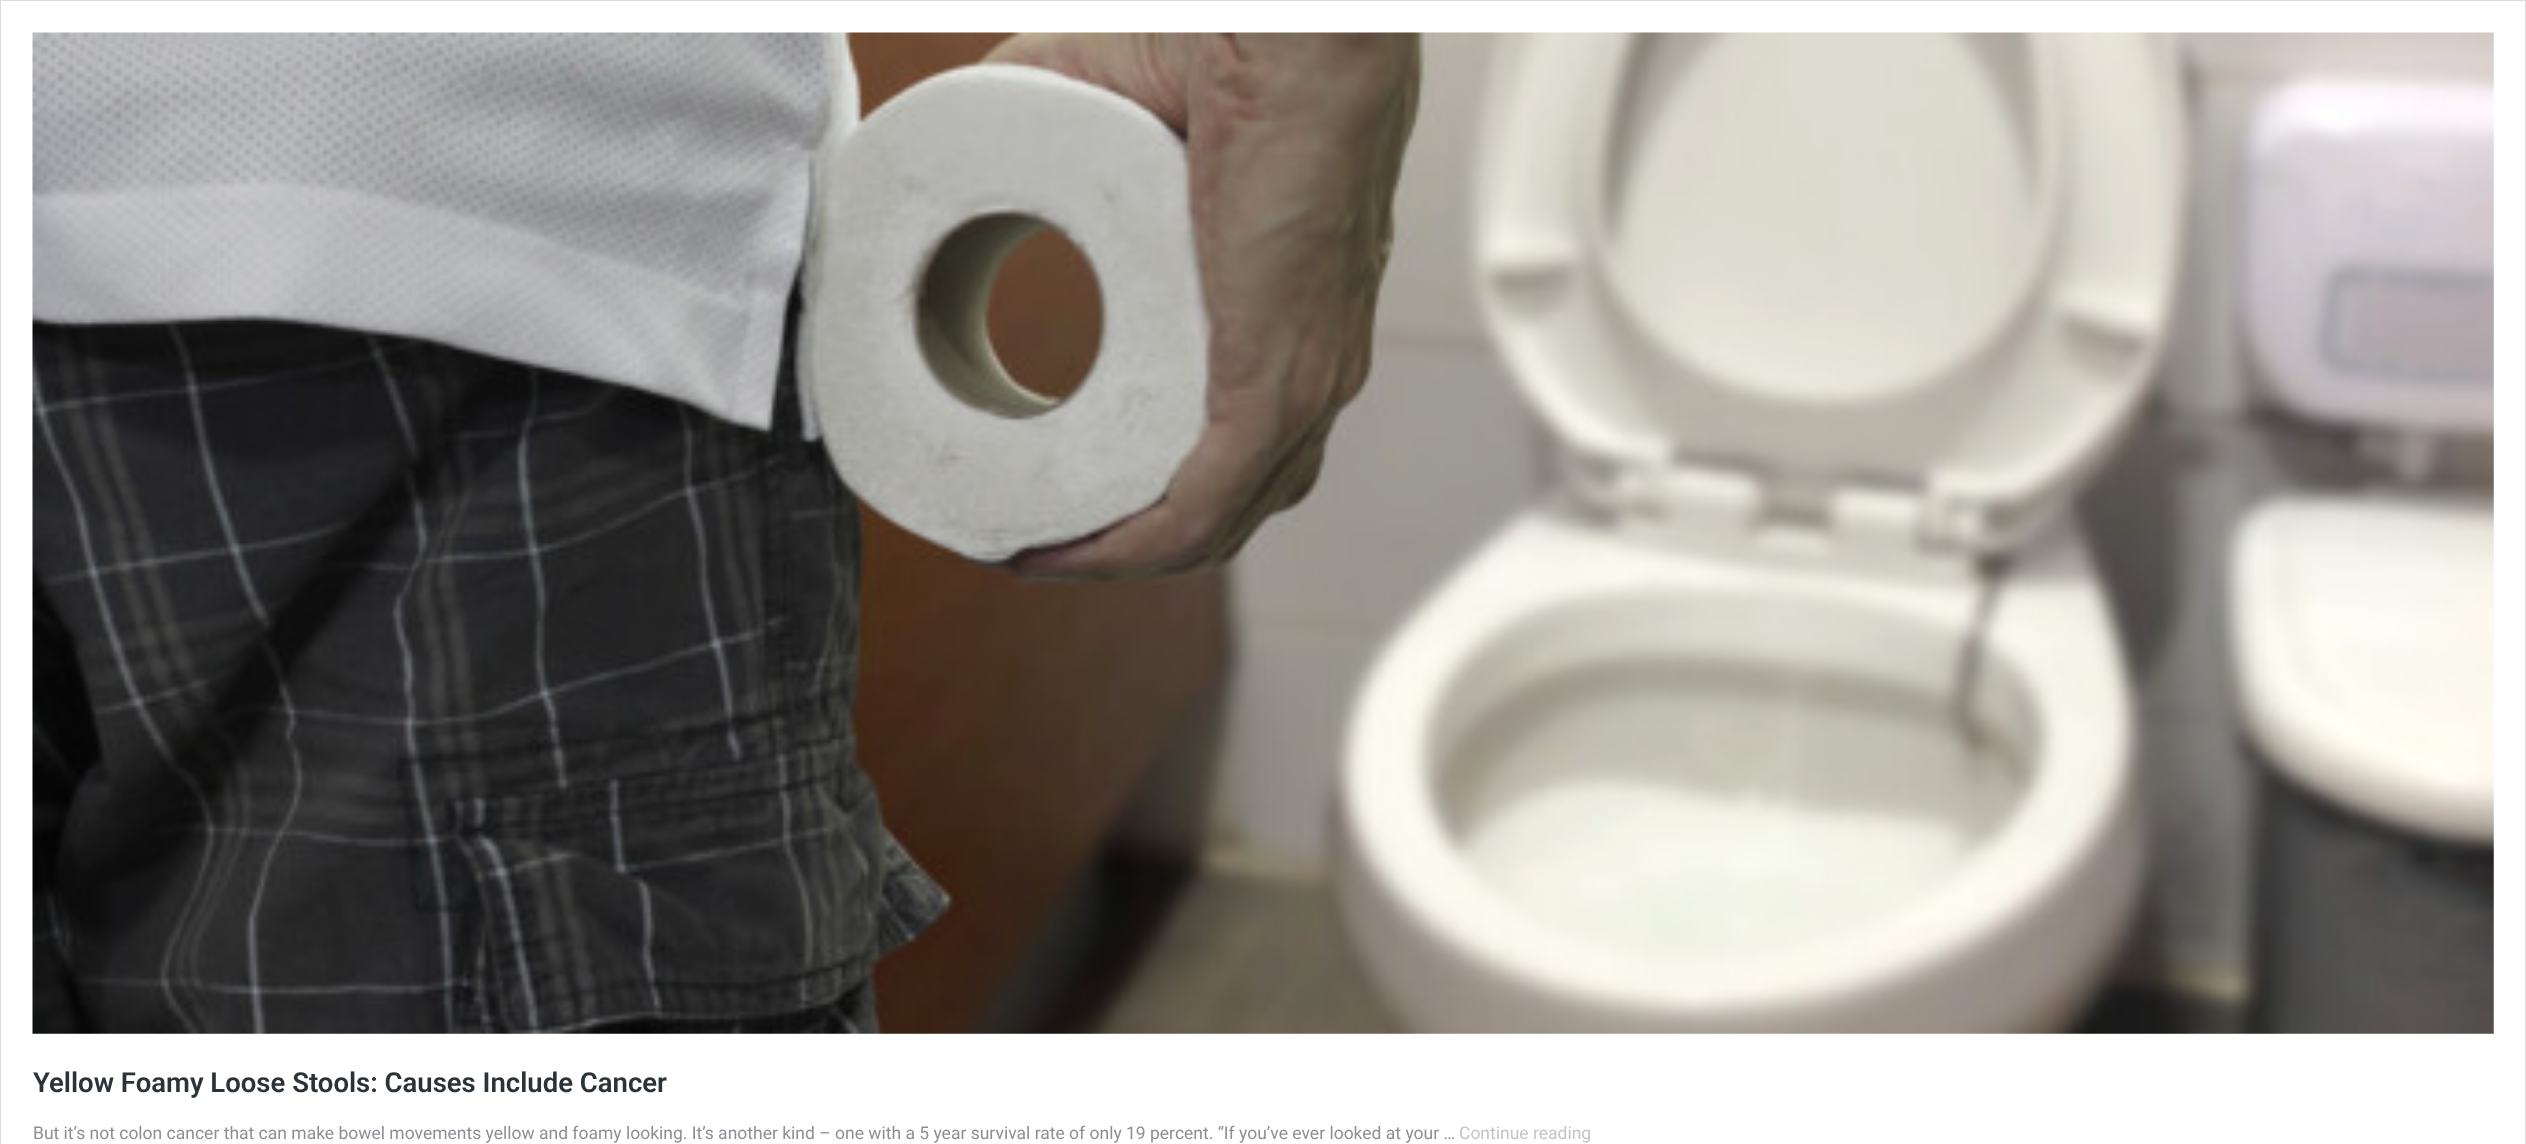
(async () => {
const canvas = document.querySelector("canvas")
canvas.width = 2526
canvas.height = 1144
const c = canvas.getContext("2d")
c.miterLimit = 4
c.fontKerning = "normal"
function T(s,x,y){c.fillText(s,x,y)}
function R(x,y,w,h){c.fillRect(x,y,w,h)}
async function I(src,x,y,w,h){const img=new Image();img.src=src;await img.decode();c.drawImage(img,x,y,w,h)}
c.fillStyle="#fff"
R(0,0,2526,1144)
c.strokeStyle="#dcdcde"
c.strokeRect(.5,.5,2525,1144)
await I("1.png",32,32,2462,1002)
c.font="600 27.5px Roboto"
c.fillStyle="#2c3338"
T("Yellow Foamy Loose Stools: Causes Include Cancer",33,1092)
c.font="17.5px Roboto"
c.fillStyle="#8c8f94"
T("But it’s not colon cancer that can make bowel movements yellow and foamy looking. It’s another kind – one with a 5 year survival rate of only 19 percent. “If you’ve ever looked at your …",33,1139)
c.fillStyle="#c3c4c7"
T("Continue reading",1459,1139)
})()
